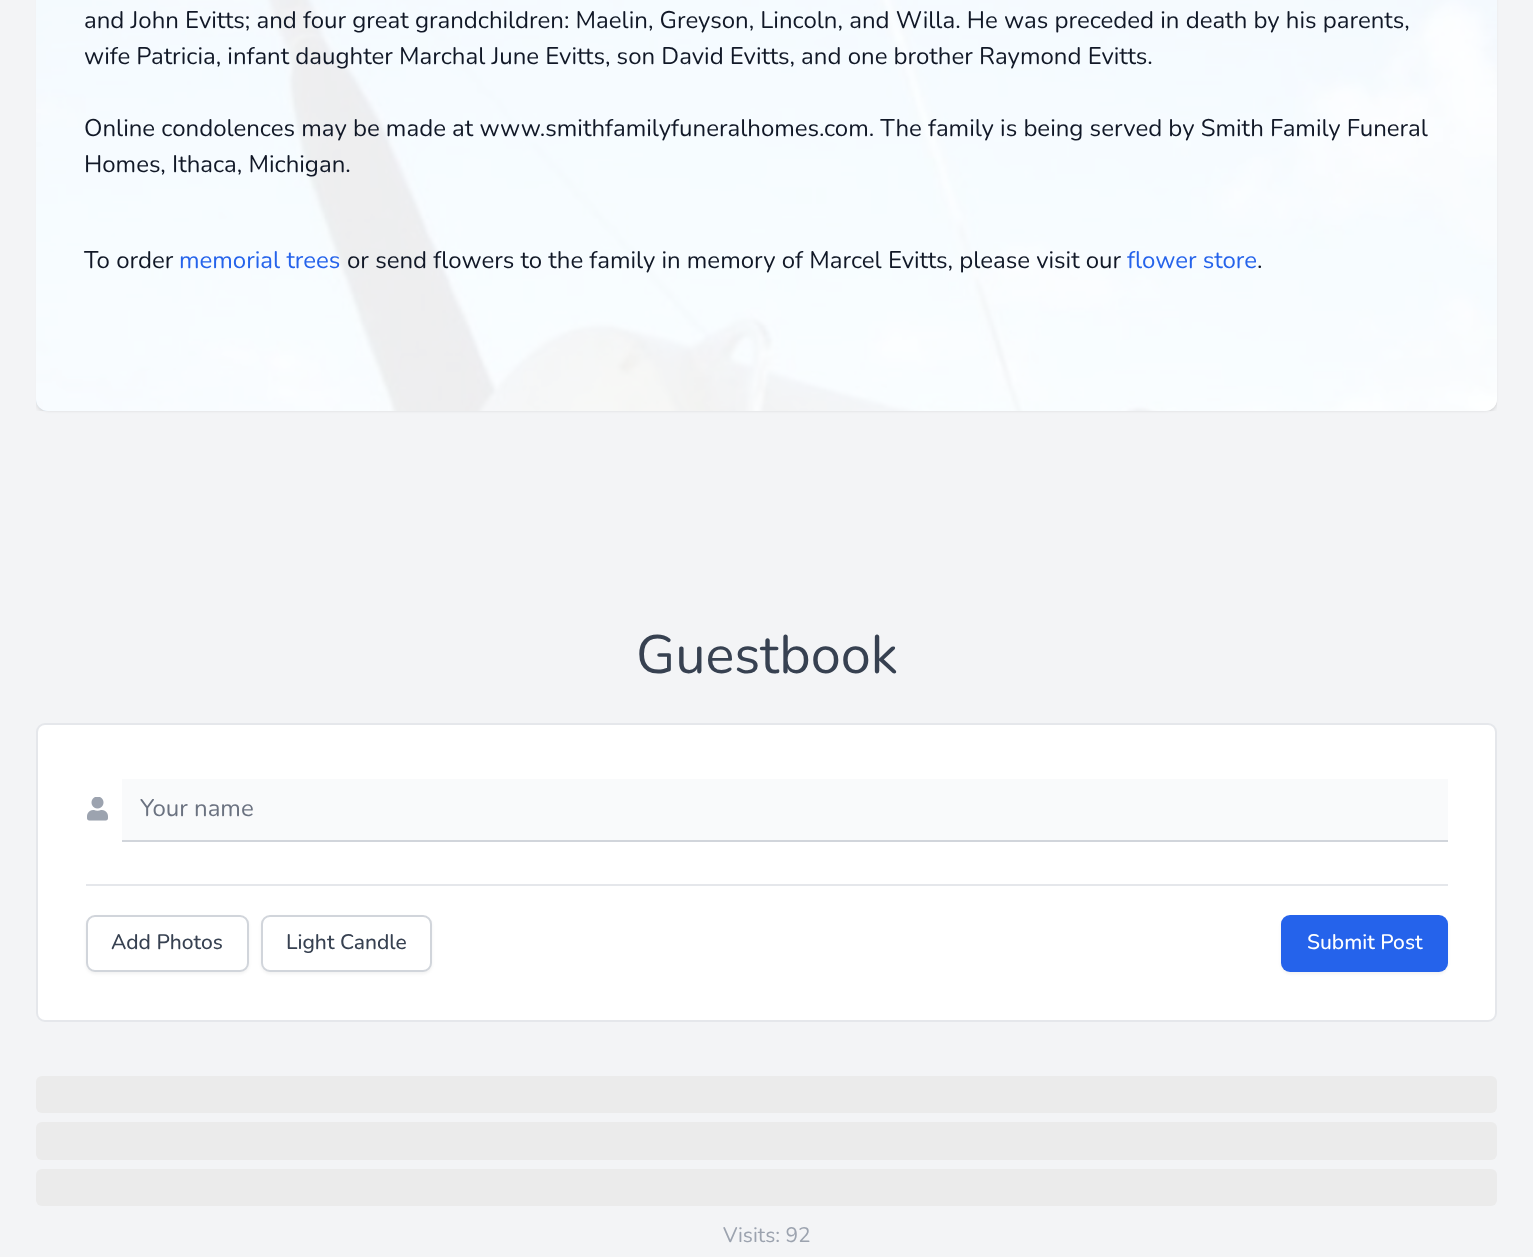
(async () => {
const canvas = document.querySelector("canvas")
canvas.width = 1533
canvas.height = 1257
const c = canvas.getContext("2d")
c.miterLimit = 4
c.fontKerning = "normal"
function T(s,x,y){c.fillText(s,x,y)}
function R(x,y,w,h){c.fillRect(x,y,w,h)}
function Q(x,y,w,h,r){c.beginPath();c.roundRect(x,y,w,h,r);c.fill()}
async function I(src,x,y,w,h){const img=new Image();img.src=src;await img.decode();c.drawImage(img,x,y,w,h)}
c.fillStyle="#f3f4f6"
R(0,0,1533,1257)
c.fillStyle="#0000001a"
c.filter="blur(1.5px)"
c.beginPath()
c.roundRect(38,-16,1458,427,11)
c.fill()
c.filter="none"
c.save()
c.beginPath()
c.rect(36,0,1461,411)
c.clip()
c.filter="blur(2px)"
c.beginPath()
c.roundRect(36,-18,1461,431,12)
c.fill()
c.filter="none"
c.restore()
await I("1.png",36,0,1461,411)
c.fillStyle="#ffffffcc"
Q(36,-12,1461,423,12)
c.font="24px Nunito"
c.fillStyle="#111827"
T("and John Evitts; and four great grandchildren: Maelin, Greyson, Lincoln, and Willa. He was preceded in death by his parents,",84,28)
T("wife Patricia, infant daughter Marchal June Evitts, son David Evitts, and one brother Raymond Evitts.",84,64)
T("Online condolences may be made at www.smithfamilyfuneralhomes.com. The family is being served by Smith Family Funeral",84,136)
T("Homes, Ithaca, Michigan.",84,172)
T("To order",84,268)
c.fillStyle="#2563eb"
T("memorial trees",179,268)
c.fillStyle="#111827"
T("or send flowers to the family in memory of Marcel Evitts, please visit our",347,268)
c.fillStyle="#2563eb"
T("flower store",1127,268)
c.fillStyle="#111827"
T(".",1257,268)
c.font="54px Nunito"
c.fillStyle="#374151"
T("Guestbook",636,673)
c.fillStyle="#fff"
c.beginPath()
c.roundRect(37,724,1459,297,8)
c.fill()
c.strokeStyle="#e5e7eb"
c.lineWidth=2
c.stroke()
await I("2.png",87,797,21,24)
c.fillStyle="#d1d5db"
R(122,840,1326,2)
c.fillStyle="#f9fafb"
R(122,779,1326,61)
c.font="24px Nunito"
c.fillStyle="#6b7280"
T("Your name",140,816)
c.fillStyle="#e5e7eb"
R(86,884,1362,2)
c.fillStyle="#0000000d"
c.filter="blur(1.5px)"
c.beginPath()
c.roundRect(86,917,163,57,9)
c.fill()
c.filter="none"
c.fillStyle="#fff"
c.beginPath()
c.roundRect(87,916,161,55,8)
c.fill()
c.strokeStyle="#d1d5db"
c.stroke()
c.font="500 21px Nunito"
c.fillStyle="#374151"
T("Add Photos",111,949)
c.fillStyle="#0000000d"
c.filter="blur(1.5px)"
c.beginPath()
c.roundRect(261,917,171,57,9)
c.fill()
c.filter="none"
c.fillStyle="#fff"
c.beginPath()
c.roundRect(262,916,169,55,8)
c.fill()
c.stroke()
c.fillStyle="#374151"
T("Light Candle",286,949)
c.fillStyle="#0000000d"
c.filter="blur(1.5px)"
c.beginPath()
c.roundRect(1281,917,167,57,9)
c.fill()
c.filter="none"
c.fillStyle="#2563eb"
Q(1281,915,167,57,9)
c.fillStyle="#fff"
T("Submit Post",1307,949)
c.fillStyle="#ebebeb"
Q(36,1076,1461,37,6)
Q(36,1122,1461,38,6)
Q(36,1169,1461,37,6)
c.font="21px Nunito"
c.fillStyle="#9ca3af"
T("Visits: 92",723,1242)
})()
